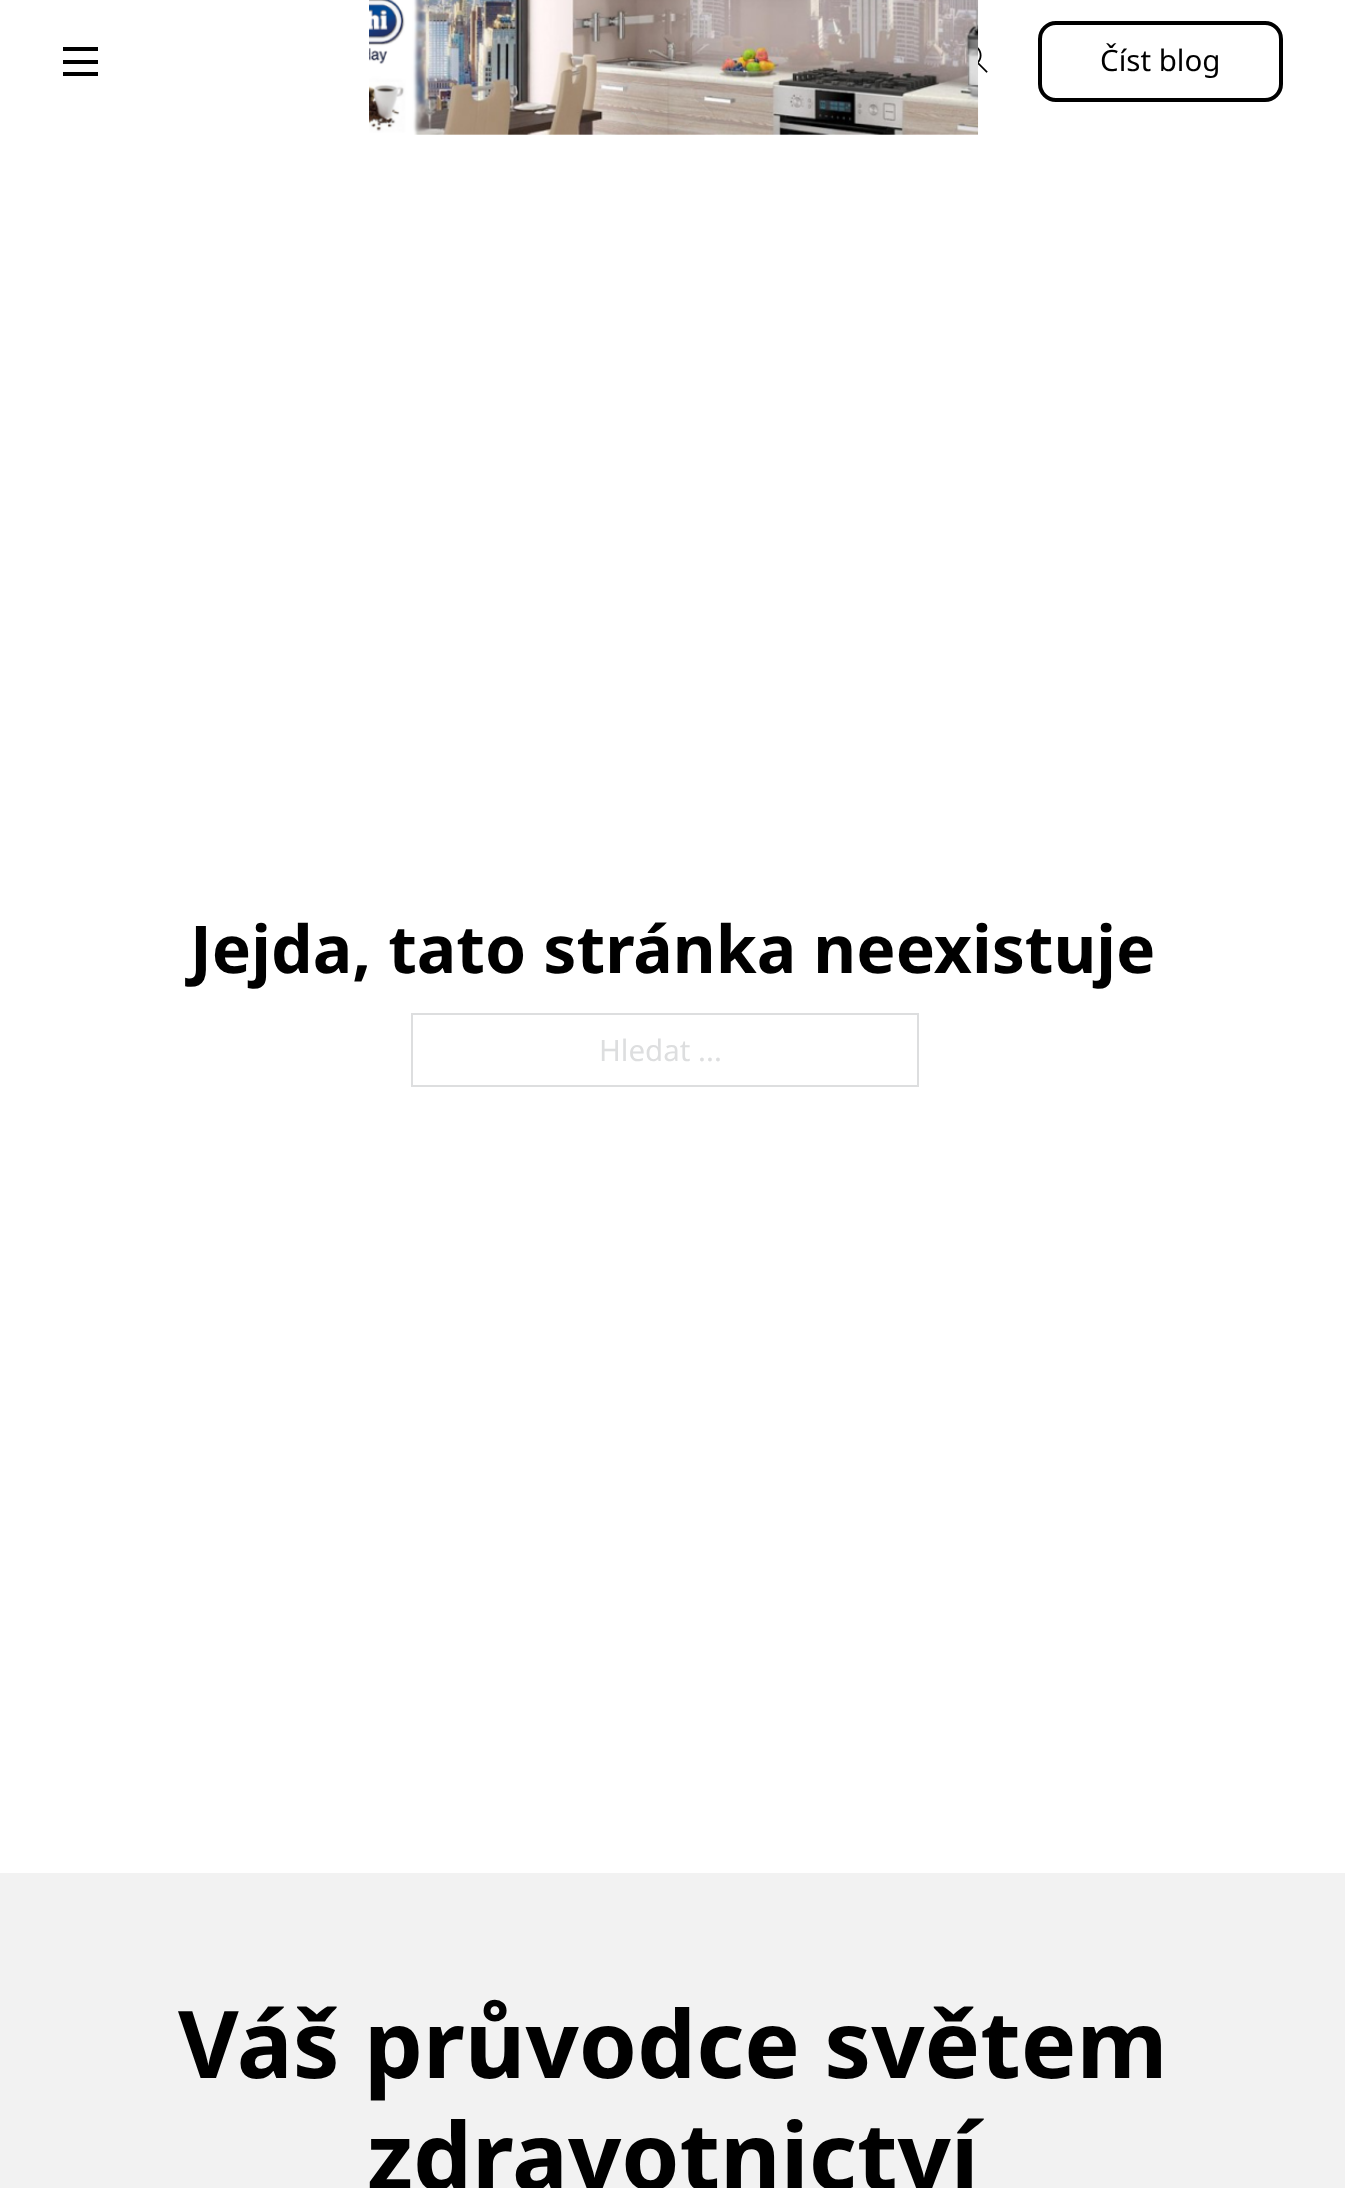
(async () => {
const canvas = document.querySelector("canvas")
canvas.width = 1345
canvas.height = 2188
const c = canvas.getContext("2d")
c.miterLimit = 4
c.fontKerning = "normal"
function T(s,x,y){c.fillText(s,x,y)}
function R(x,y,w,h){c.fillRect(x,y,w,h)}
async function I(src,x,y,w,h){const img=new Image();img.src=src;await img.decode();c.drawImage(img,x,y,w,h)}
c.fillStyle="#fff"
R(0,0,1345,2188)
c.fillStyle="#000"
R(63,47,35,4)
R(63,60,35,4)
R(63,72,35,4)
await I("2.png",978,47,10,26)
await I("1.png",369,0,610,135)
c.beginPath()
c.roundRect(1040,23,241,77,16)
c.strokeStyle="#000"
c.lineWidth=4
c.stroke()
c.font="29.5px Noto Sans"
T("Číst blog",1100,71)
c.font="bold 66px Noto Sans"
T("Jejda, tato stránka neexistuje",190,973)
c.strokeStyle="#dddedf"
c.lineWidth=2
c.strokeRect(412,1014,506,72)
c.font="29.5px Noto Sans"
c.fillStyle="#dddedf"
T("Hledat ...",599,1061)
c.fillStyle="#f2f2f2"
R(0,1873,1345,315)
c.font="bold 93.4px Noto Sans"
c.fillStyle="#000"
T("Váš průvodce světem",178,2078)
T("zdravotnictví",367,2190)
})()
